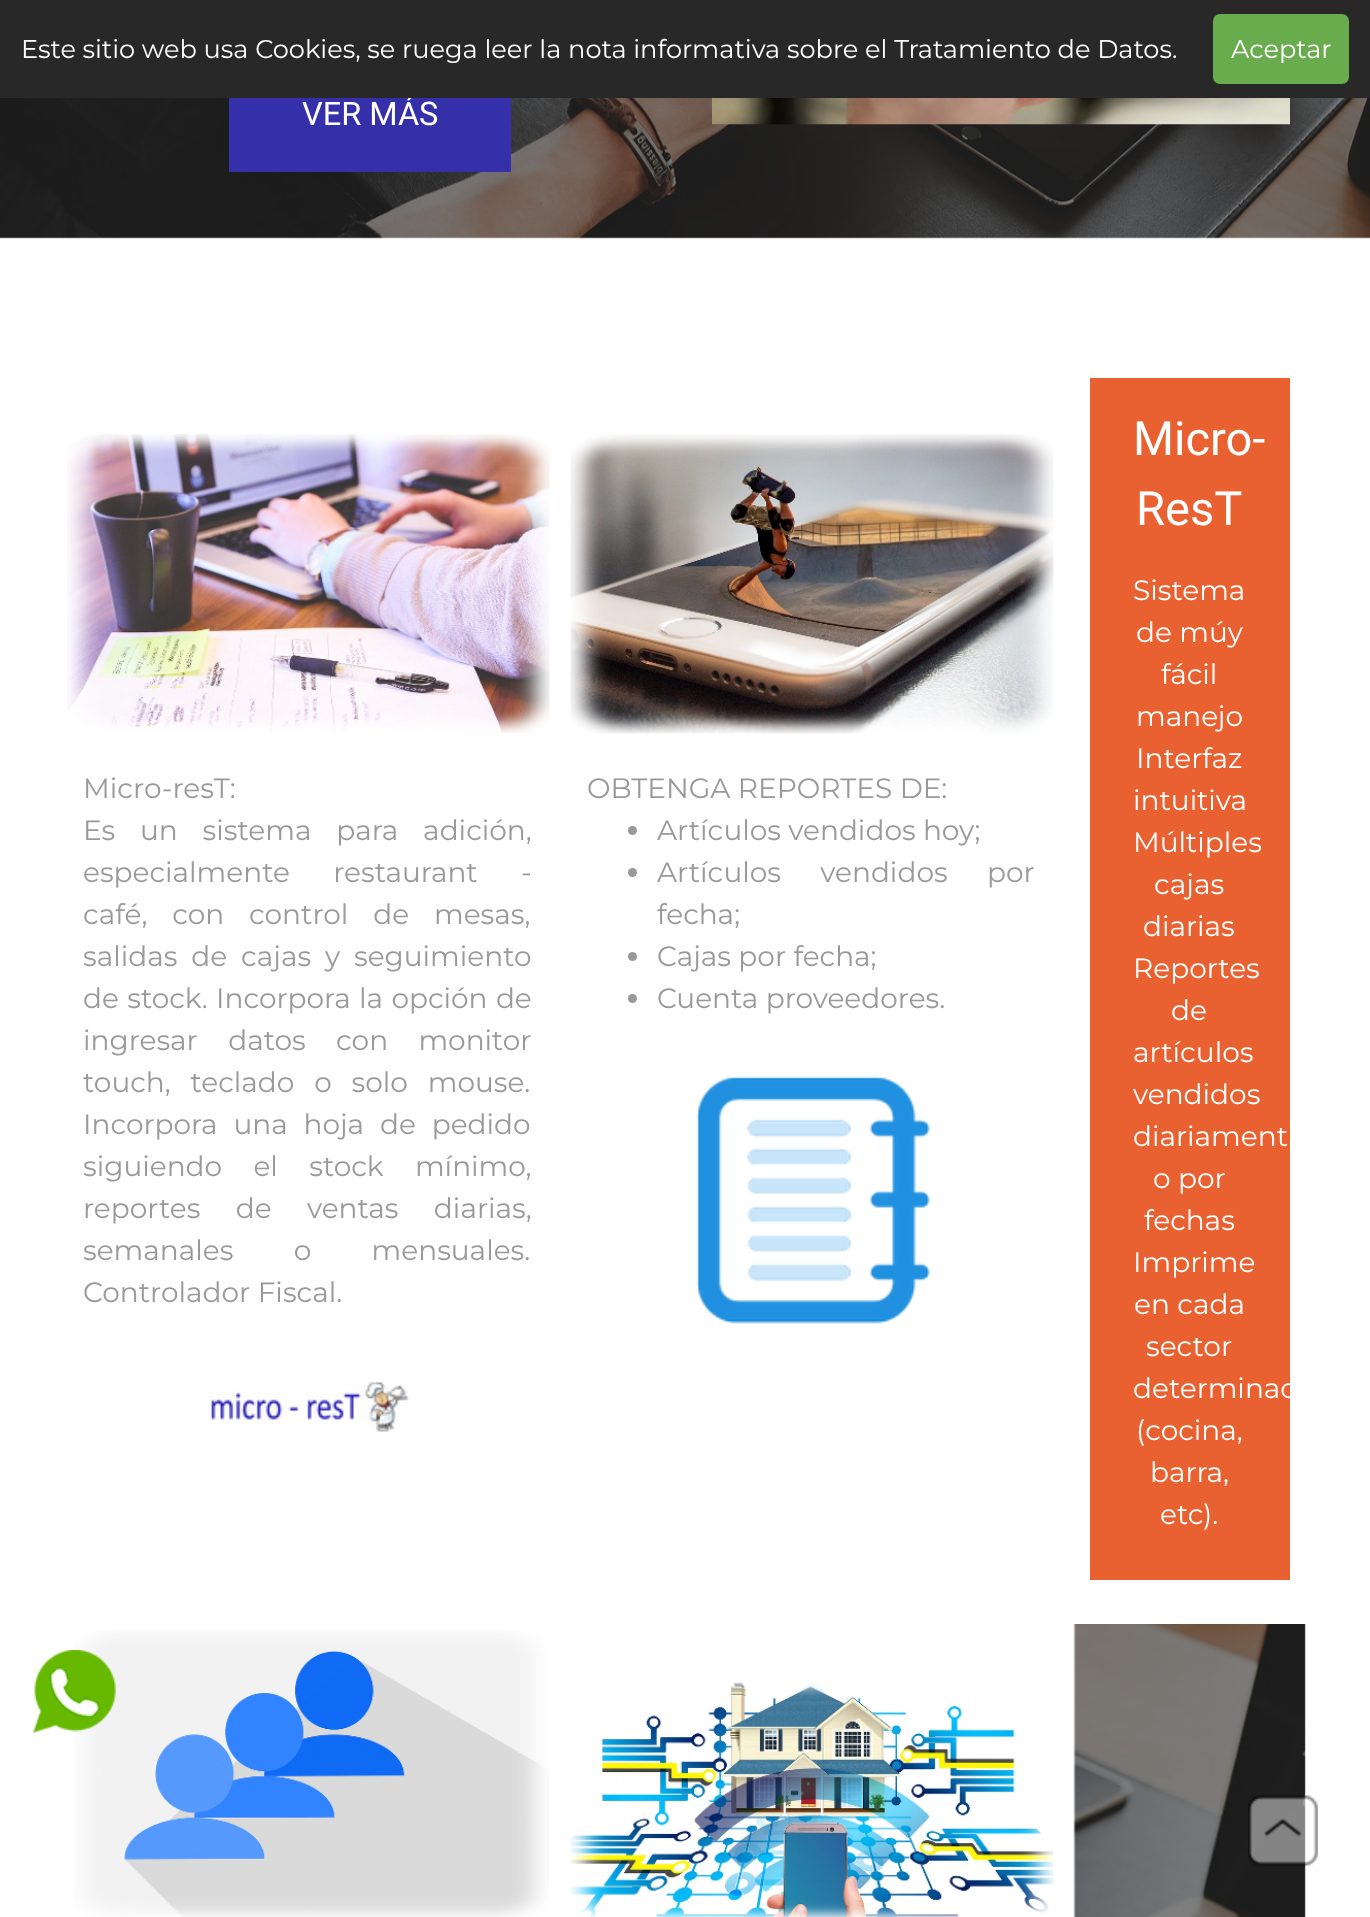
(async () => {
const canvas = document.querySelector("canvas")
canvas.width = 1370
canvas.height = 1917
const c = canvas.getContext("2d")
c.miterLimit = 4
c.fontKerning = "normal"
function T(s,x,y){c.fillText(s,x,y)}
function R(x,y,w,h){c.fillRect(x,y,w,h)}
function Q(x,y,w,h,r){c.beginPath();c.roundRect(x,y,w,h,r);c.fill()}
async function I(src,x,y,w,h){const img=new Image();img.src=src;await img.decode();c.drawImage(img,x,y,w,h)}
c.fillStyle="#fff"
R(0,0,1370,1917)
await I("1.png",0,98,1370,141)
c.fillStyle="#362faa"
R(229,98,282,74)
c.font="32.5px Roboto"
c.fillStyle="#fff"
T("VER MÁS",302,125)
c.fillStyle="#282828"
R(0,0,1370,98)
c.font="25.65px Montserrat"
c.fillStyle="#fff"
T("Este sitio web usa Cookies, se ruega leer la nota informativa sobre el Tratamiento de Datos.",21,58)
c.fillStyle="#69ac4d"
Q(1213,14,136,70,7)
c.fillStyle="#fff"
T("Aceptar",1231,58)
await I("2.png",712,98,578,27)
await I("3.png",67,434,483,299)
await I("4.png",570,434,484,300)
c.fillStyle="#e96130"
R(1090,378,200,1202)
c.font="47px Roboto"
c.fillStyle="#fff"
T("Micro-",1133,455)
T("ResT",1136,525)
c.font="28px Montserrat"
T("Sistema",1133,600)
T("de múy",1136,642)
T("fácil",1161,684)
T("manejo",1136,726)
T("Interfaz",1136,768)
T("intuitiva",1133,810)
T("Múltiples",1133,852)
T("cajas",1154,894)
T("diarias",1143,936)
T("Reportes",1133,978)
T("de",1171,1020)
T("artículos",1133,1062)
T("vendidos",1133,1104)
T("diariament",1133,1146)
T("o por",1153,1188)
T("fechas",1144,1230)
T("Imprime",1133,1272)
T("en cada",1134,1314)
T("sector",1146,1356)
T("determinao",1133,1398)
T("(cocina,",1136,1440)
T("barra,",1150,1482)
T("etc).",1160,1524)
c.fillStyle="#999"
T("Micro-resT:",83,798)
c.wordSpacing="17.5px"
T("Es un sistema para adición,",83,840)
c.wordSpacing="36px"
T("especialmente restaurant -",83,882)
c.wordSpacing="17.5px"
T("café, con control de mesas,",83,924)
c.wordSpacing="6.5px"
T("salidas de cajas y seguimiento",83,966)
c.wordSpacing="1px"
T("de stock. Incorpora la opción de",83,1008)
c.wordSpacing="23px"
T("ingresar datos con monitor",83,1050)
c.wordSpacing="12.5px"
T("touch, teclado o solo mouse.",83,1092)
c.wordSpacing="8.5px"
T("Incorpora una hoja de pedido",83,1134)
c.wordSpacing="24px"
T("siguiendo el stock mínimo,",83,1176)
c.wordSpacing="28px"
T("reportes de ventas diarias,",83,1218)
c.wordSpacing="53px"
T("semanales o mensuales.",83,1260)
c.wordSpacing="0px"
T("Controlador Fiscal.",83,1302)
await I("5.png",210,1381,199,51)
T("OBTENGA REPORTES DE:",587,798)
c.beginPath()
c.arc(632.5,830.5,4.5,0,7)
c.fill()
T("Artículos vendidos hoy;",657,840)
c.beginPath()
c.arc(632.5,872.5,4.5,0,7)
c.fill()
c.wordSpacing="32px"
T("Artículos vendidos por",657,882)
c.wordSpacing="0px"
T("fecha;",657,924)
c.beginPath()
c.arc(632.5,956.5,4.5,0,7)
c.fill()
T("Cajas por fecha;",657,966)
c.beginPath()
c.arc(632.5,998.5,4.5,0,7)
c.fill()
T("Cuenta proveedores.",657,1008)
await I("6.png",696,1076,234,248)
await I("7.png",74,1630,475,287)
await I("8.png",570,1682,484,235)
await I("9.png",1073,1624,233,293)
await I("10.png",33,1650,83,83)
await I("11.png",1248,1795,70,71)
})()
